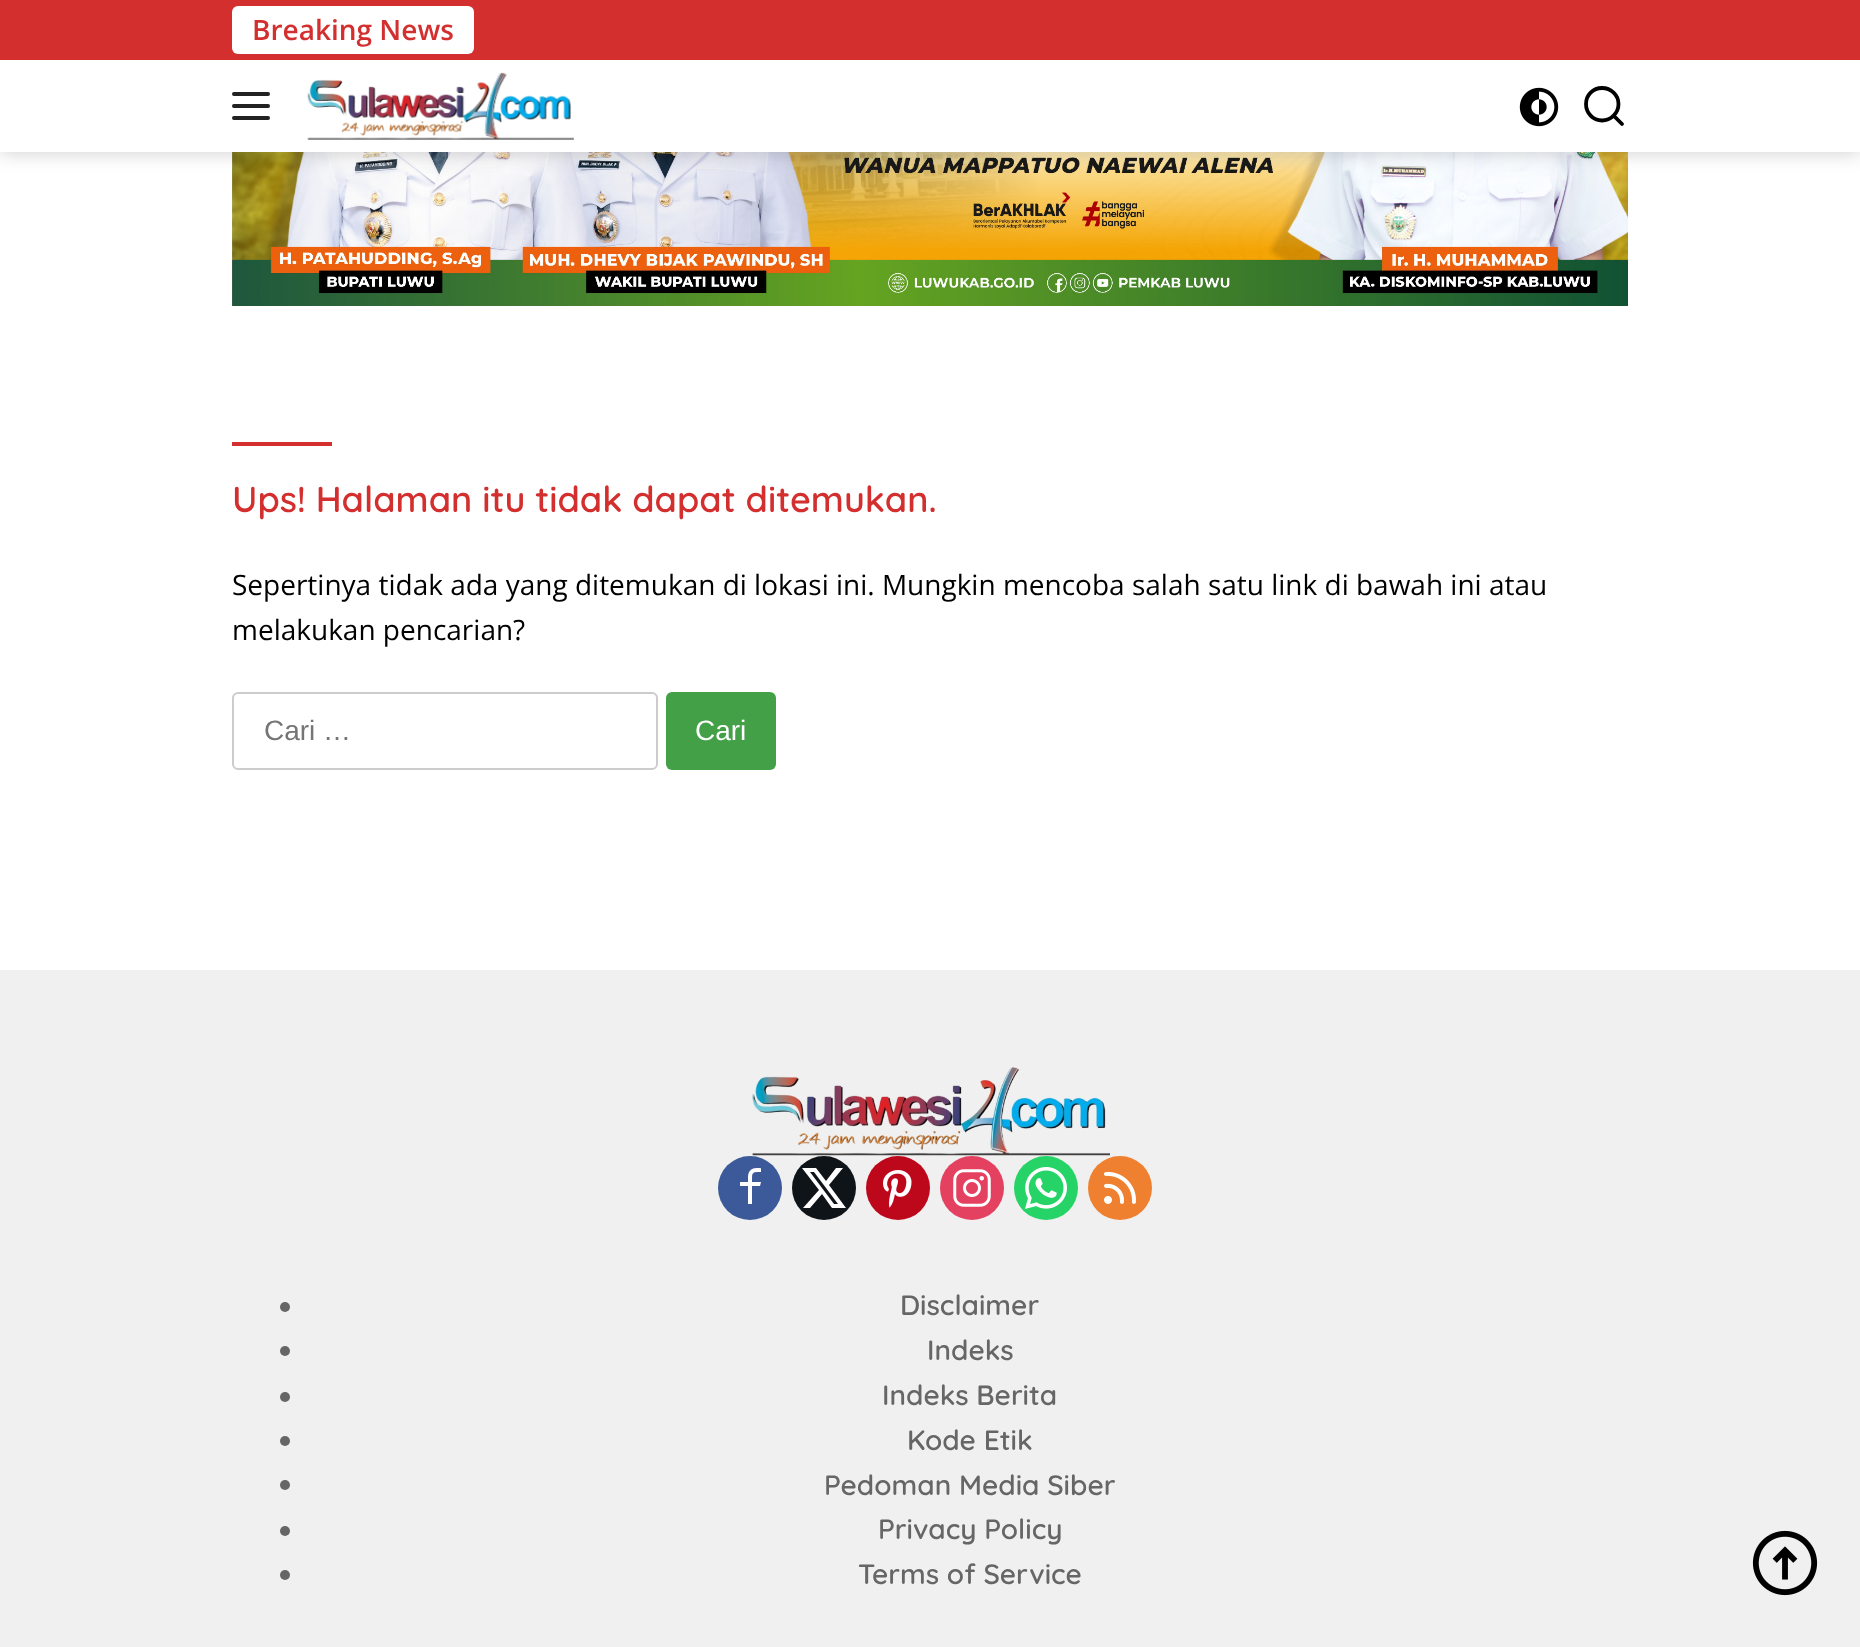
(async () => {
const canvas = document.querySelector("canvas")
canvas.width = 1860
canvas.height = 1647
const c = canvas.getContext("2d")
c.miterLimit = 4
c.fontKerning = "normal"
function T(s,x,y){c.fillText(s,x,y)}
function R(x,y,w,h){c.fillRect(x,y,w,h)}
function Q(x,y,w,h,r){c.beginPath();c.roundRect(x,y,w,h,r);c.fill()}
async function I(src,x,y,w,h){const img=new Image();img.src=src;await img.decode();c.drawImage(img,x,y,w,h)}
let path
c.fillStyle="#fff"
R(0,0,1860,1647)
await I("3.png",232,152,1396,154)
c.fillStyle="#00000033"
c.filter="blur(10px)"
c.beginPath()
c.rect(0,0,1860,152)
c.fill()
c.filter="none"
c.fillStyle="#fff"
R(0,60,1860,92)
c.fillStyle="#d32f2f"
R(0,0,1860,60)
c.fillStyle="#fff"
Q(232,6,242,48,6)
c.font="600 28px Open Sans"
c.fillStyle="#d32f2f"
T("Breaking News",252,40)
c.fillStyle="#222"
Q(232,92,38,4,2)
Q(232,104,38,4,2)
Q(232,116,38,4,2)
await I("1.png",307,72,267,68)
await I("2.png",1519,87,40,40)
path = new Path2D("M1622 124l-8.5-8.5m5-11.5c0 9-7.5 16.5-16.5 16.5c-9 0-16-7.5-16-16.5c0-9 7-16 16-16c9 0 16.5 7 16.5 16z")
c.strokeStyle="#000"
c.lineWidth=3.8
c.lineCap="round"
c.stroke(path)
c.fillStyle="#d32f2f"
R(232,442,100,4)
c.font="600 36px Quicksand"
T("Ups! Halaman itu tidak dapat ditemukan.",232,512)
c.font="28px Open Sans"
c.fillStyle="#000"
T("Sepertinya tidak ada yang ditemukan di lokasi ini. Mungkin mencoba salah satu link di bawah ini atau",232,595)
T("melakukan pencarian?",232,640)
c.beginPath()
c.roundRect(233,693,424,76,5)
c.strokeStyle="#ccc"
c.lineWidth=2
c.stroke()
c.font="28px Liberation Sans"
c.fillStyle="#757575"
T("Cari …",264,740)
c.fillStyle="#43a047"
Q(666,692,110,78,6)
c.fillStyle="#fff"
T("Cari",695,740)
c.fillStyle="#f0f0f0"
R(0,970,1860,677)
await I("4.png",752,1067,358,89)
c.fillStyle="#3c5a99"
c.beginPath()
c.arc(750,1188,32,0,7)
c.fill()
await I("5.png",740,1168,21,36)
c.fillStyle="#0f1419"
c.beginPath()
c.arc(824,1188,32,0,7)
c.fill()
c.fillStyle="#fff"
path = new Path2D("M836 1168h7l-14 17l17 23h-14l-10-14l-12 14h-7l16-18l-17-22h14l10 13zm-2 36h4l-24-32h-4z")
c.fill(path)
c.fillStyle="#bd081c"
c.beginPath()
c.arc(898,1188,32,0,7)
c.fill()
await I("6.png",883,1170,29,38)
c.fillStyle="#e4405f"
c.beginPath()
c.arc(972,1188,32,0,7)
c.fill()
await I("7.png",953,1169,38,38)
c.fillStyle="#25d366"
c.beginPath()
c.arc(1046,1188,32,0,7)
c.fill()
await I("8.png",1025,1167,42,42)
c.fillStyle="#ee802f"
c.beginPath()
c.arc(1120,1188,32,0,7)
c.fill()
await I("9.png",1104,1171,32,33)
c.fillStyle="#666"
c.beginPath()
c.arc(285,1307,5,0,7)
c.fill()
c.font="600 28px Quicksand"
T("Disclaimer",900,1315)
c.beginPath()
c.arc(285,1351,5,0,7)
c.fill()
T("Indeks",927,1360)
c.beginPath()
c.arc(285,1397,5,0,7)
c.fill()
T("Indeks Berita",882,1405)
c.beginPath()
c.arc(285,1441,5,0,7)
c.fill()
T("Kode Etik",907,1450)
c.beginPath()
c.arc(285,1485,5,0,7)
c.fill()
T("Pedoman Media Siber",824,1495)
c.beginPath()
c.arc(285,1531,5,0,7)
c.fill()
T("Privacy Policy",878,1539)
c.beginPath()
c.arc(285,1575,5,0,7)
c.fill()
T("Terms of Service",858,1584)
await I("10.png",1752,1530,66,66)
})()
